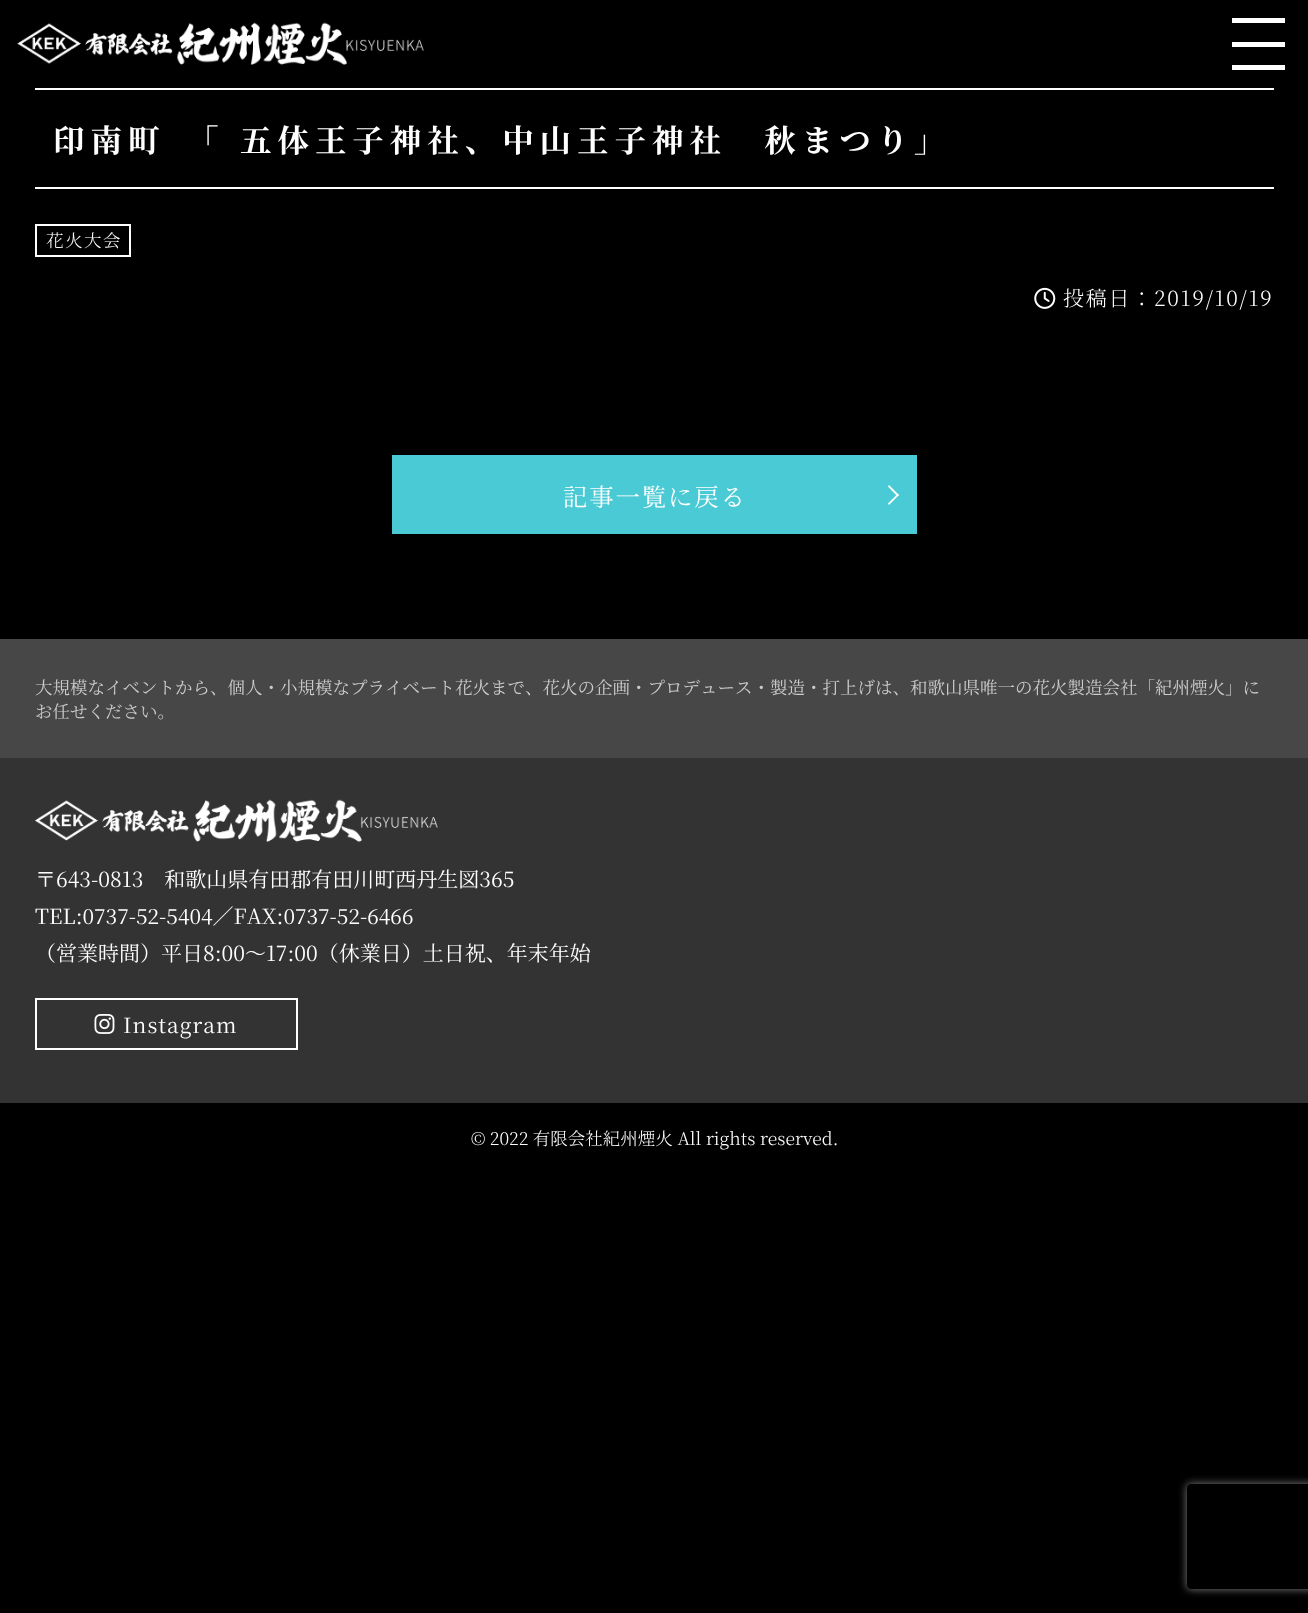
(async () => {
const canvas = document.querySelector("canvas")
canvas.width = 1308
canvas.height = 1613
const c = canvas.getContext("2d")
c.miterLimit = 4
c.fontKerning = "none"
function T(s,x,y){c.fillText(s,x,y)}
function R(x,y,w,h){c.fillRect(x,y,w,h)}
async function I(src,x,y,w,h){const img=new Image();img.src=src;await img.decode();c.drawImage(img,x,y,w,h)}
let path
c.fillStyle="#000"
R(0,0,1308,1613)
await I("1.png",17,22,407,43)
c.fillStyle="#fff"
R(1232,18,53,5)
R(1232,42,53,5)
R(1232,65,53,5)
R(35,88,1239,2)
R(35,187,1239,2)
c.letterSpacing="5.95px"
c.font="bold 31.5px Noto Serif JP"
T("印南町　「",53,152)
T("五体王子神社、中山王子神社　秋まつり」",240,152)
c.strokeStyle="#fff"
c.lineWidth=2
c.strokeRect(36,225,94,31)
c.letterSpacing="1.5px"
c.font="300 17.5px Noto Serif JP"
T("花火大会",46,247)
await I("2.png",1034,287,22,22)
c.letterSpacing="1.75px"
c.font="300 21px Noto Serif JP"
T("投稿日：2019/10/19",1063,306)
c.fillStyle="#49cad4"
R(392,455,525,79)
c.font="24.5px Noto Serif JP"
c.fillStyle="#fff"
T("記事一覧に戻る",563,506)
path = new Path2D("M889 485l10 10l-1.5 1.5l-9.5-10z")
c.fill(path)
path = new Path2D("M897.5 494l1.5 1l-10 10l-1-1.5z")
c.fill(path)
c.fillStyle="#484747"
R(0,639,1308,119)
c.letterSpacing="0px"
c.font="17.5px Noto Serif JP"
c.fillStyle="#ccc"
T("大規模なイベントから、個人・小規模なプライベート花火まで、花火の企画・プロデュース・製造・打上げは、和歌山県唯一の花火製造会社「紀州煙火」に",35,694)
T("お任せください。",35,718)
c.fillStyle="#333"
R(0,758,1308,345)
await I("3.png",35,799,403,43)
c.font="21px Noto Serif JP"
c.fillStyle="#fff"
T("〒643-0813　和歌山県有田郡有田川町西丹生図365",35,887)
T("TEL:0737-52-5404／FAX:0737-52-6466",35,924)
T("（営業時間）平日8:00～17:00（休業日）土日祝、年末年始",35,961)
c.strokeRect(36,999,261,50)
await I("4.png",94,1014,21,20)
c.letterSpacing="1px"
T("Instagram",123,1033)
c.letterSpacing="0px"
c.font="300 17.5px Noto Serif JP"
T("© 2022 有限会社紀州煙火 All rights reserved.",471,1145)
c.save()
path = new Path2D("M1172 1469h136v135h-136zm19 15h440c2 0 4 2 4 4v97c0 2-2 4-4 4h-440c-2 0-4-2-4-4v-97c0-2 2-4 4-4z")
c.clip(path,"evenodd")
c.fillStyle="#808080"
c.filter="blur(4.5px)"
c.beginPath()
c.roundRect(1187,1484,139,105,4)
c.fill()
c.filter="none"
c.restore()
})()
